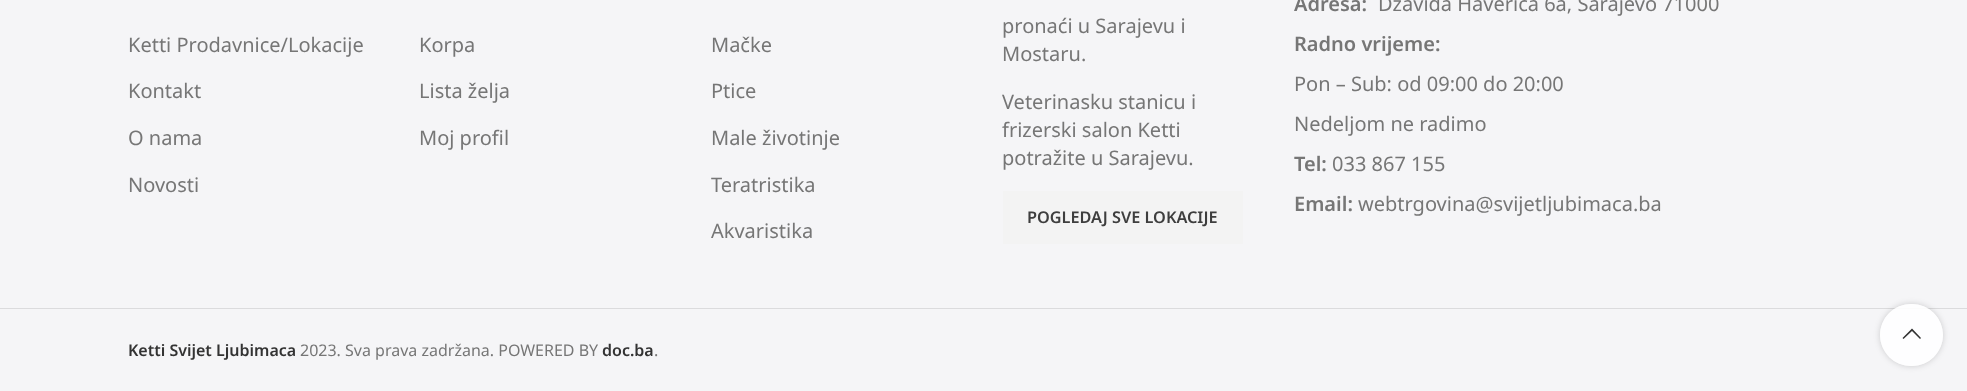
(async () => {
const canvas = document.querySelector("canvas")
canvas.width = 1967
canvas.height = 391
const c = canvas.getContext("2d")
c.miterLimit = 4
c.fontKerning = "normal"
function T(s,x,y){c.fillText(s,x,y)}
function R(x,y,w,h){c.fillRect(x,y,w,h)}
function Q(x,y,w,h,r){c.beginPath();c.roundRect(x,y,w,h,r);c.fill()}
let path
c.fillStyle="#f5f5f7"
R(0,0,1967,391)
c.font="20px Noto Sans"
c.fillStyle="#767676"
T("Ketti Prodavnice/Lokacije",128,52)
T("Kontakt",128,98)
T("O nama",128,145)
T("Novosti",128,192)
T("Korpa",419,52)
T("Lista želja",419,98)
T("Moj profil",419,145)
T("Mačke",711,52)
T("Ptice",711,98)
T("Male životinje",711,145)
T("Teratristika",711,192)
T("Akvaristika",711,238)
T("pronaći u Sarajevu i",1002,33)
T("Mostaru.",1002,61)
T("Veterinasku stanicu i",1002,109)
T("frizerski salon Ketti",1002,137)
T("potražite u Sarajevu.",1002,165)
c.fillStyle="#f3f3f3"
R(1003,191,240,53)
c.font="600 16.25px Noto Sans"
c.fillStyle="#3e3e3e"
T("POGLEDAJ SVE LOKACIJE",1027,223)
c.font="600 20px Noto Sans"
c.fillStyle="#767676"
T("Adresa:",1294,11)
c.font="20px Noto Sans"
T("Džavida Haverića 6a, Sarajevo 71000",1378,11)
c.font="600 20px Noto Sans"
T("Radno vrijeme:",1294,51)
c.font="20px Noto Sans"
T("Pon – Sub: od 09:00 do 20:00",1294,91)
T("Nedeljom ne radimo",1294,131)
c.font="600 20px Noto Sans"
T("Tel:",1294,171)
c.font="20px Noto Sans"
T("033 867 155",1332,171)
c.font="600 20px Noto Sans"
T("Email:",1294,211)
c.font="20px Noto Sans"
T("webtrgovina@svijetljubimaca.ba",1358,211)
c.fillStyle="#dbdbdd"
R(0,308,1967,1)
c.font="600 16px Noto Sans"
c.fillStyle="#333"
T("Ketti Svijet Ljubimaca",128,356)
c.font="16px Noto Sans"
c.fillStyle="#767676"
T("2023. Sva prava zadržana. POWERED BY",300,356)
c.font="600 16px Noto Sans"
c.fillStyle="#333"
T("doc.ba",602,356)
c.font="16px Noto Sans"
c.fillStyle="#767676"
T(".",654,356)
c.save()
path = new Path2D("M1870 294h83v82h-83zm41 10h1c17 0 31 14 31 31c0 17-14 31-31 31h-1c-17 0-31-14-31-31c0-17 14-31 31-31z")
c.clip(path,"evenodd")
c.fillStyle="#0000002b"
c.filter="blur(3px)"
c.beginPath()
c.roundRect(1880,304,63,62,31)
c.fill()
c.filter="none"
c.restore()
c.fillStyle="#ffffffe6"
Q(1880,304,63,62,31)
c.fillStyle="#333"
path = new Path2D("M1920 339l1-1l-9-9.5l-9.5 9.5l1 1l8.5-8z")
c.fill(path)
})()
